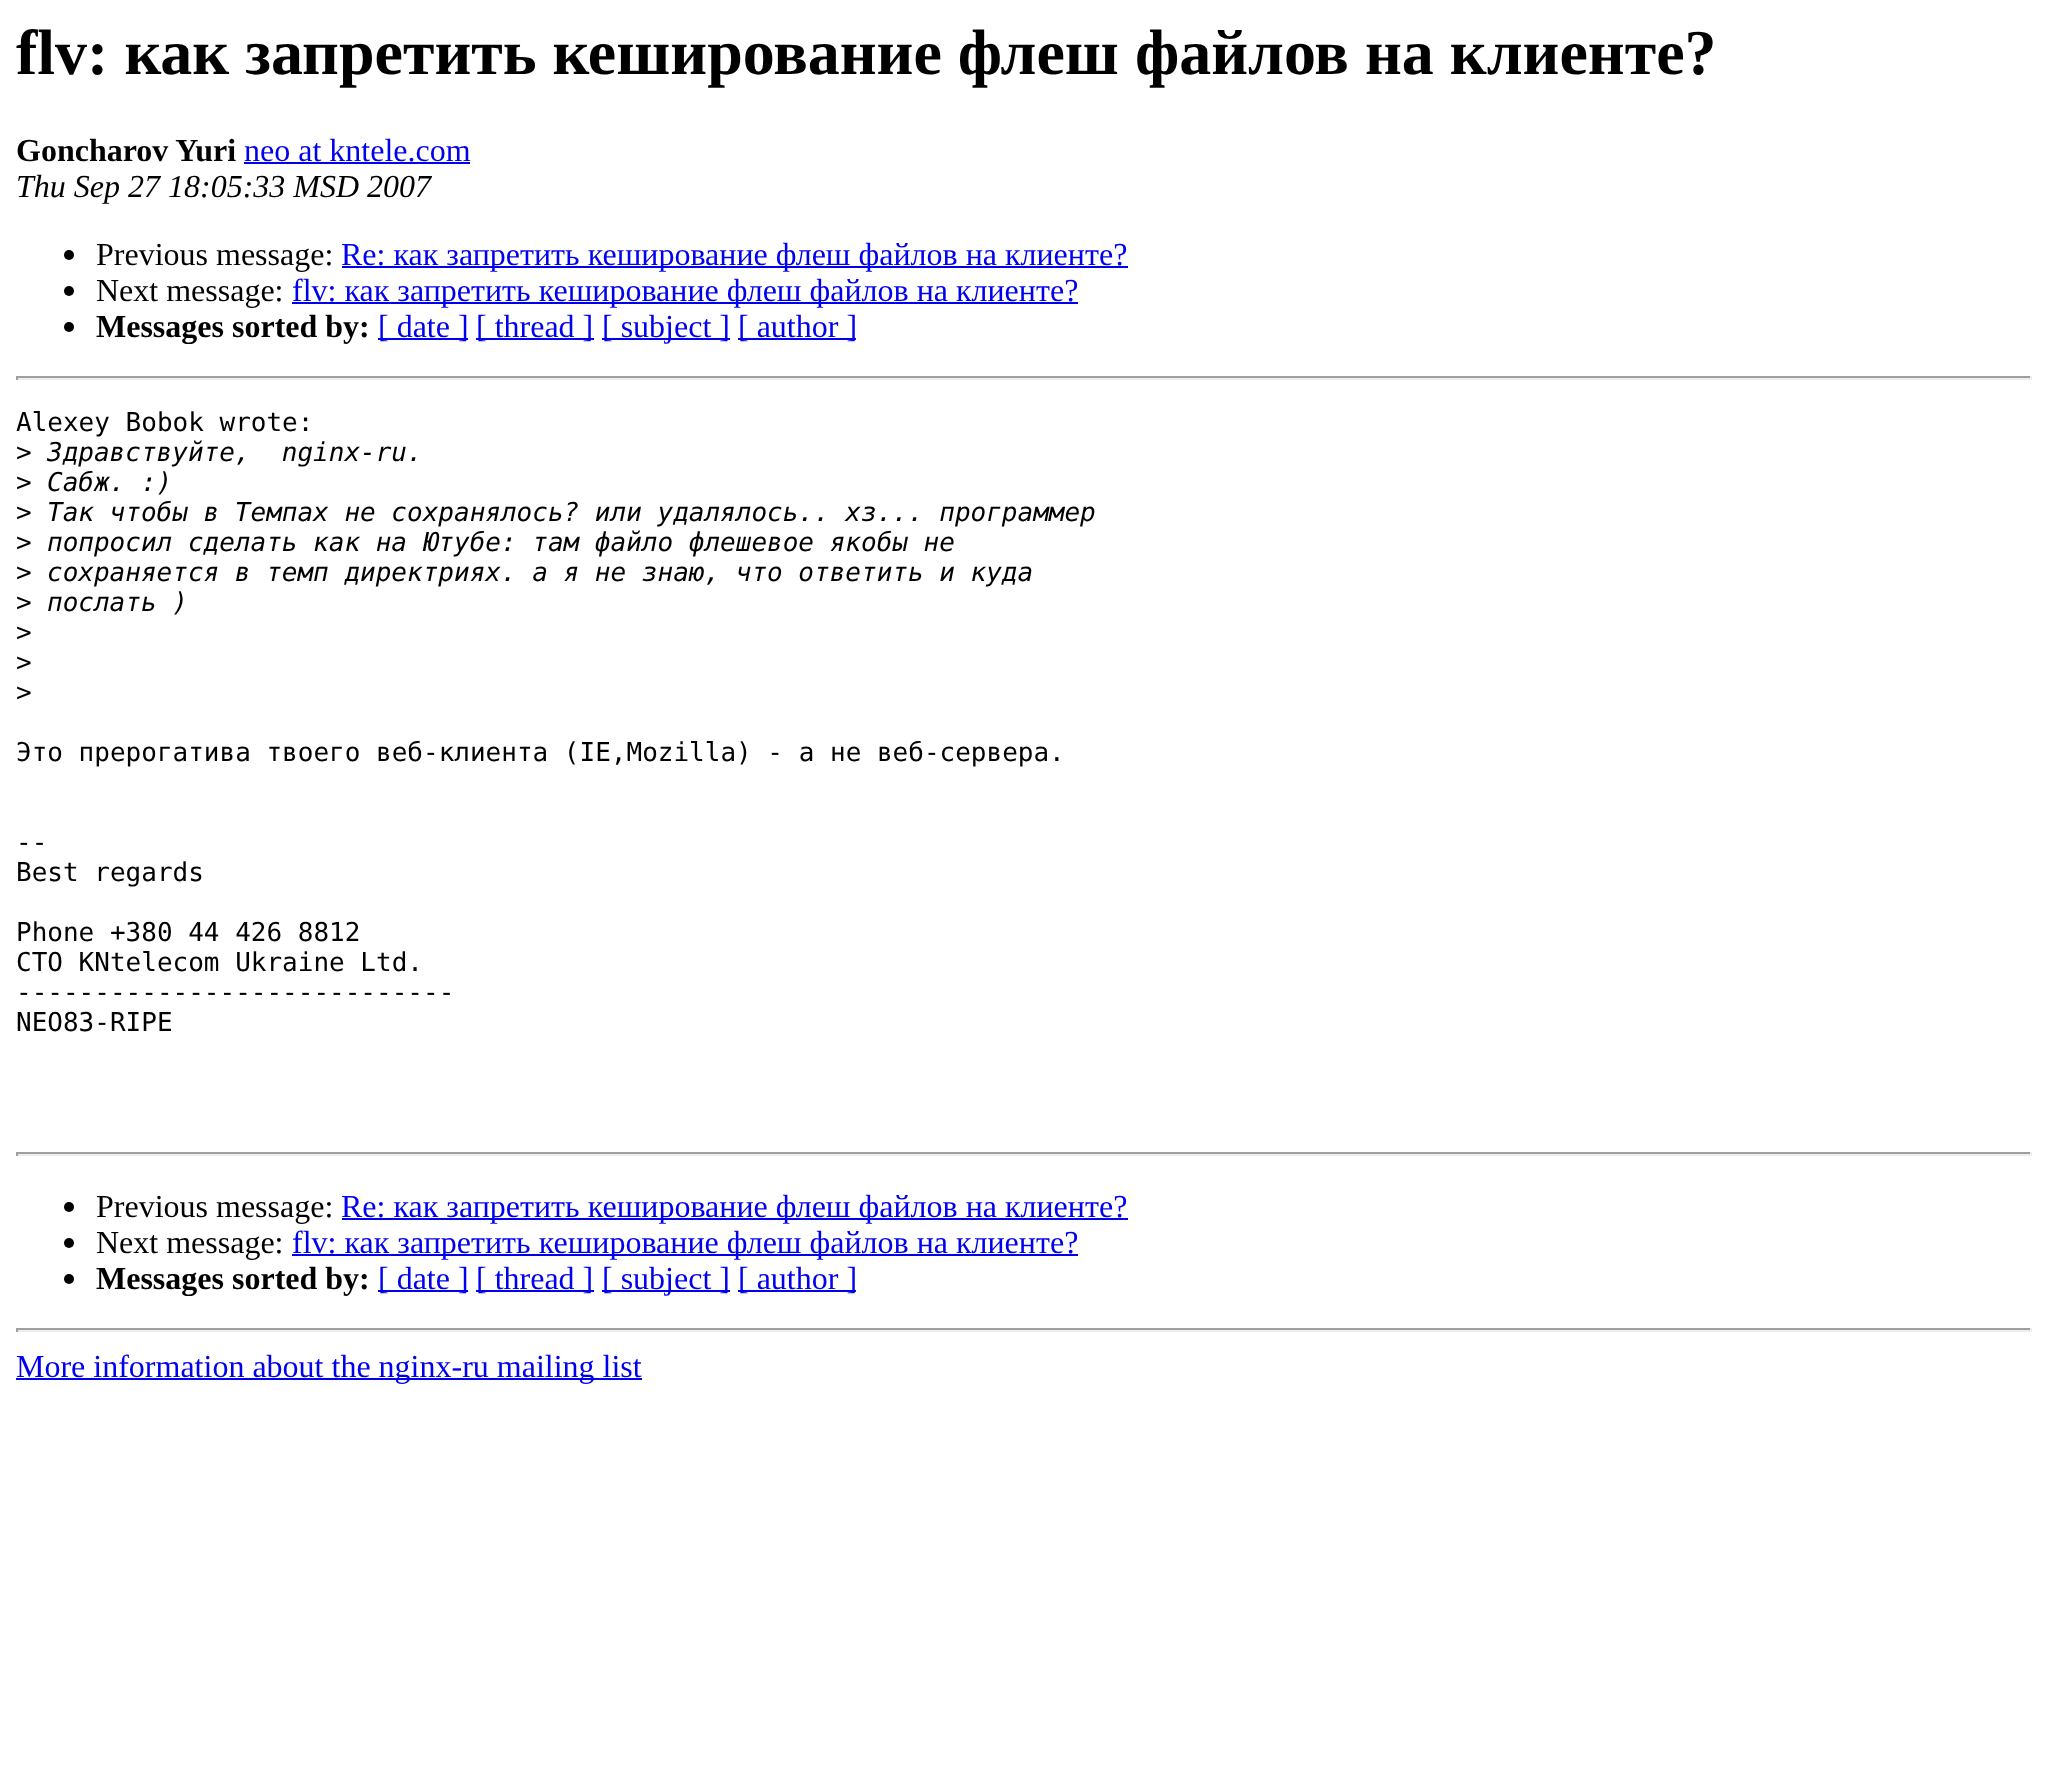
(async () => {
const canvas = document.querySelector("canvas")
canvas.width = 2047
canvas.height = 1789
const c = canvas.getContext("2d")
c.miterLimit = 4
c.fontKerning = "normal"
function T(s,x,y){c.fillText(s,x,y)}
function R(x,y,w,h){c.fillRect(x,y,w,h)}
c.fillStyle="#fff"
R(0,0,2047,1789)
c.font="bold 64px Liberation Serif"
c.fillStyle="#000"
T("flv: как запретить кеширование флеш файлов на клиенте?",16,74)
c.font="bold 32px Liberation Serif"
T("Goncharov Yuri",16,161)
c.font="32px Liberation Serif"
c.fillStyle="#00e"
T("neo at kntele.com",244,161)
R(244,162,226,2)
c.font="italic 32px Liberation Serif"
c.fillStyle="#000"
T("Thu Sep 27 18:05:33 MSD 2007",16,197)
c.beginPath()
c.arc(69,255,5,0,7)
c.fill()
c.font="32px Liberation Serif"
T("Previous message:",96,265)
c.fillStyle="#00e"
R(342,266,786,2)
T("Re: как запретить кеширование флеш файлов на клиенте?",341,265)
c.fillStyle="#000"
c.beginPath()
c.arc(69,291,5,0,7)
c.fill()
T("Next message:",96,301)
c.fillStyle="#00e"
R(292,302,786,2)
T("flv: как запретить кеширование флеш файлов на клиенте?",292,301)
c.fillStyle="#000"
c.beginPath()
c.arc(69,327,5,0,7)
c.fill()
c.font="bold 32px Liberation Serif"
T("Messages sorted by:",96,337)
c.fillStyle="#00e"
R(378,338,90,2)
c.font="32px Liberation Serif"
T("[ date ]",378,337)
R(476,338,118,2)
T("[ thread ]",476,337)
R(602,338,128,2)
T("[ subject ]",602,337)
R(738,338,118,2)
T("[ author ]",738,337)
c.fillStyle="#9f9f9f"
R(16,376,2016,2)
c.fillStyle="#eee"
R(2030,376,2,4)
R(16,378,2016,2)
c.fillStyle="#9f9f9f"
R(16,376,2,4)
c.font="26px DejaVu Sans Mono"
c.fillStyle="#000"
T("Alexey Bobok wrote:",16,431)
T(">",16,461)
c.font="italic 26px DejaVu Sans Mono"
T("Здравствуйте,  nginx-ru.",47,461)
c.font="26px DejaVu Sans Mono"
T(">",16,491)
c.font="italic 26px DejaVu Sans Mono"
T("Сабж. :)",47,491)
c.font="26px DejaVu Sans Mono"
T(">",16,521)
c.font="italic 26px DejaVu Sans Mono"
T("Так чтобы в Темпах не сохранялось? или удалялось.. хз... программер",47,521)
c.font="26px DejaVu Sans Mono"
T(">",16,551)
c.font="italic 26px DejaVu Sans Mono"
T("попросил сделать как на Ютубе: там файло флешевое якобы не",47,551)
c.font="26px DejaVu Sans Mono"
T(">",16,581)
c.font="italic 26px DejaVu Sans Mono"
T("сохраняется в темп директриях. а я не знаю, что ответить и куда",47,581)
c.font="26px DejaVu Sans Mono"
T(">",16,611)
c.font="italic 26px DejaVu Sans Mono"
T("послать )",47,611)
c.font="26px DejaVu Sans Mono"
T(">",16,641)
T(">",16,671)
T(">",16,701)
T("Это прерогатива твоего веб-клиента (IE,Mozilla) - а не веб-сервера.",16,761)
T("--",16,851)
T("Best regards",16,881)
T("Phone +380 44 426 8812",16,941)
T("CTO KNtelecom Ukraine Ltd.",16,971)
T("----------------------------",16,1001)
T("NEO83-RIPE",16,1031)
c.fillStyle="#9f9f9f"
R(16,1152,2016,2)
c.fillStyle="#eee"
R(2030,1152,2,4)
R(16,1154,2016,2)
c.fillStyle="#9f9f9f"
R(16,1152,2,4)
c.fillStyle="#000"
c.beginPath()
c.arc(69,1207,5,0,7)
c.fill()
c.font="32px Liberation Serif"
T("Previous message:",96,1217)
c.fillStyle="#00e"
R(342,1218,786,2)
T("Re: как запретить кеширование флеш файлов на клиенте?",341,1217)
c.fillStyle="#000"
c.beginPath()
c.arc(69,1243,5,0,7)
c.fill()
T("Next message:",96,1253)
c.fillStyle="#00e"
R(292,1254,786,2)
T("flv: как запретить кеширование флеш файлов на клиенте?",292,1253)
c.fillStyle="#000"
c.beginPath()
c.arc(69,1279,5,0,7)
c.fill()
c.font="bold 32px Liberation Serif"
T("Messages sorted by:",96,1289)
c.fillStyle="#00e"
R(378,1290,90,2)
c.font="32px Liberation Serif"
T("[ date ]",378,1289)
R(476,1290,118,2)
T("[ thread ]",476,1289)
R(602,1290,128,2)
T("[ subject ]",602,1289)
R(738,1290,118,2)
T("[ author ]",738,1289)
c.fillStyle="#9f9f9f"
R(16,1328,2016,2)
c.fillStyle="#eee"
R(2030,1328,2,4)
R(16,1330,2016,2)
c.fillStyle="#9f9f9f"
R(16,1328,2,4)
c.fillStyle="#00e"
R(16,1378,626,2)
T("More information about the nginx-ru mailing list",16,1377)
})()
